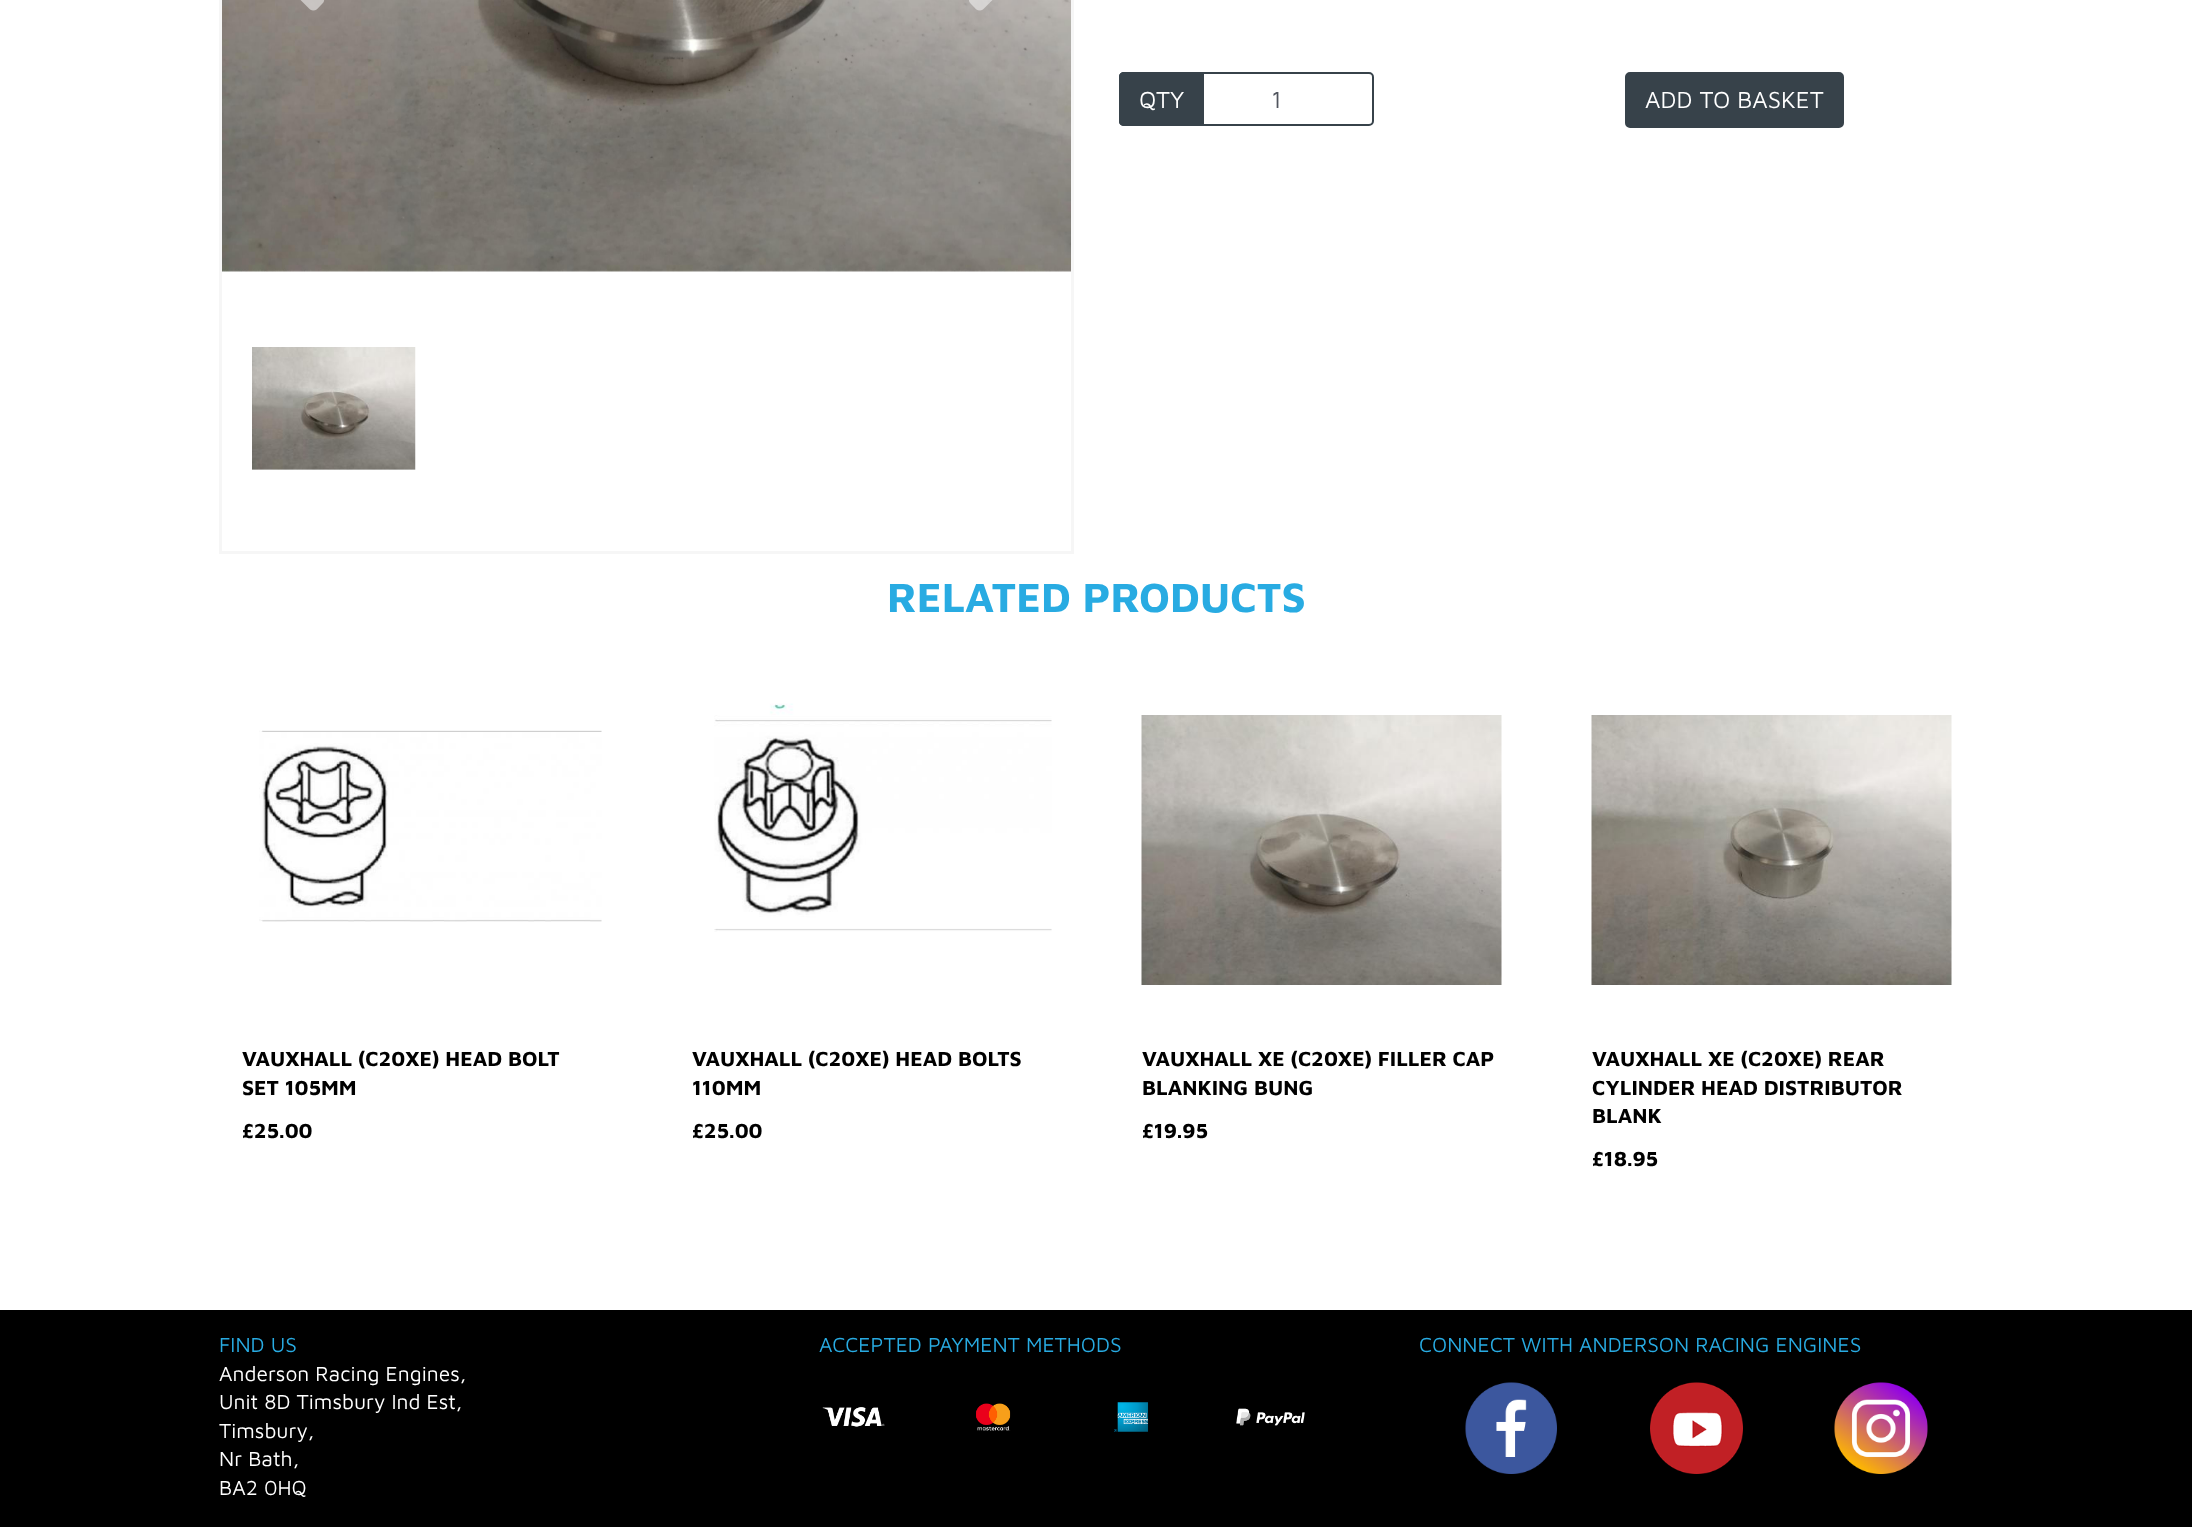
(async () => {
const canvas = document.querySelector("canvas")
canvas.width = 2192
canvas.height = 1527
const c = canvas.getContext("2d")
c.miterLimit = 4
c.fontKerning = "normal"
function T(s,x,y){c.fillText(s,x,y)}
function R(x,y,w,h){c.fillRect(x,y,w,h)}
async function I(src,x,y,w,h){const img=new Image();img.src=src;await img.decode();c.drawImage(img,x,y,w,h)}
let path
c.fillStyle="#fff"
R(0,0,2192,1527)
c.strokeStyle="#f6f6f6"
c.lineWidth=3
c.strokeRect(220.5,-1.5,852,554)
await I("1.png",222,0,849,272)
await I("2.png",300,0,25,11)
await I("3.png",969,0,24,11)
await I("4.png",252,347,164,123)
c.fillStyle="#37424a"
c.beginPath()
c.roundRect(1119,72,83,54,[5,0,0,5])
c.fill()
path = new Path2D("M1124 72h78v54h-78c-3 0-5-2-5-4v-46c0-2 2-4 5-4zm0 2h78v50c-9 0-78 1-80 0l-1-2v-46v-2z")
c.fill(path,"evenodd")
c.font="24px Maven Pro"
c.fillStyle="#fff"
T("QTY",1139,108)
c.beginPath()
c.roundRect(1203,73,170,52,[0,4,4,0])
c.strokeStyle="#37424a"
c.lineWidth=2
c.stroke()
c.fillStyle="#51555e"
T("1",1271,108)
c.fillStyle="#37424a"
c.beginPath()
c.roundRect(1626,73,217,54,4)
c.fill()
c.stroke()
c.fillStyle="#fff"
T("ADD TO BASKET",1645,108)
c.font="bold 42px Maven Pro"
c.fillStyle="#28abe2"
T("RELATED PRODUCTS",887,612)
await I("5.png",259,730,343,192)
c.font="bold 21px Maven Pro"
c.fillStyle="#000"
T("VAUXHALL (C20XE) HEAD BOLT",242,1066)
T("SET 105MM",242,1095)
T("£25.00",242,1138)
await I("6.png",714,703,338,229)
T("VAUXHALL (C20XE) HEAD BOLTS",692,1066)
T("110MM",692,1095)
T("£25.00",692,1138)
await I("7.png",1141,715,361,270)
T("VAUXHALL XE (C20XE) FILLER CAP",1142,1066)
T("BLANKING BUNG",1142,1095)
T("£19.95",1142,1138)
await I("8.png",1591,715,361,270)
T("VAUXHALL XE (C20XE) REAR",1592,1066)
T("CYLINDER HEAD DISTRIBUTOR",1592,1095)
T("BLANK",1592,1123)
T("£18.95",1592,1166)
R(0,1310,2192,217)
c.font="21px Maven Pro"
c.fillStyle="#28abe2"
T("FIND US",219,1352)
c.fillStyle="#fff"
T("Anderson Racing Engines,",219,1381)
T("Unit 8D Timsbury Ind Est,",219,1409)
T("Timsbury,",219,1438)
T("Nr Bath,",219,1466)
T("BA2 0HQ",219,1495)
c.fillStyle="#28abe2"
T("ACCEPTED PAYMENT METHODS",819,1352)
await I("9.png",822,1407,63,20)
await I("10.png",976,1403,35,28)
await I("11.png",1114,1402,35,30)
await I("12.png",1236,1408,69,18)
T("CONNECT WITH ANDERSON RACING ENGINES",1419,1352)
await I("13.png",1465,1382,92,92)
await I("14.png",1650,1382,93,92)
await I("15.png",1834,1382,94,92)
})()
